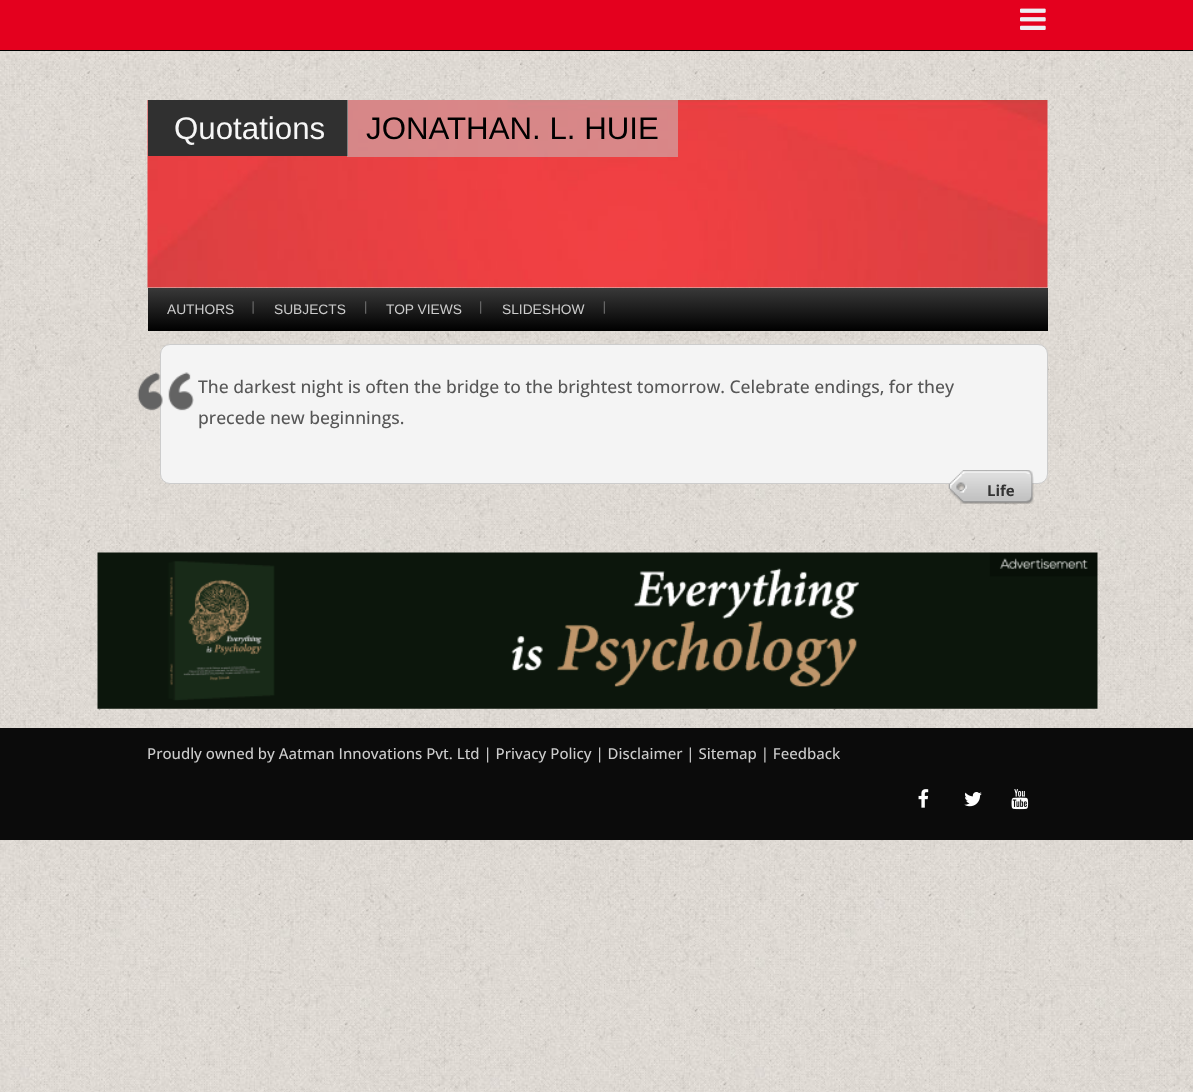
(async () => {
const canvas = document.querySelector("canvas")
canvas.width = 1193
canvas.height = 1092
const c = canvas.getContext("2d")
c.miterLimit = 4
c.fontKerning = "normal"
function T(s,x,y){c.fillText(s,x,y)}
function R(x,y,w,h){c.fillRect(x,y,w,h)}
async function I(src,x,y,w,h){const img=new Image();img.src=src;await img.decode();c.drawImage(img,x,y,w,h)}
let gradient
c.fillStyle="#fff"
R(0,0,1193,1092)
await I("1.png",0,51,1193,1041)
c.fillStyle="#e4001e"
R(0,0,1193,50)
await I("2.png",1020,8,26,22)
c.fillStyle="#000"
R(0,50,1193,1)
await I("3.png",147,100,901,188)
c.fillStyle="#303030"
R(148,100,200,56)
c.font="31.25px Liberation Sans"
c.fillStyle="#f7f7f7"
T("Quotations",174,139)
c.fillStyle="#c6c6c687"
R(347,100,331,57)
c.fillStyle="#000"
T("JONATHAN. L. HUIE",366,139)
gradient = c.createLinearGradient(598,287,598,331)
gradient.addColorStop(0,"#3a3a3a")
gradient.addColorStop(1,"#000")
c.fillStyle = gradient
R(148,288,900,43)
c.font="13.75px Liberation Sans"
c.fillStyle="#ccc"
T("AUTHORS",167,314)
await I("4.png",252,301,2,13)
T("SUBJECTS",274,314)
await I("5.png",365,301,2,13)
T("TOP VIEWS",386,314)
await I("5.png",480,301,2,13)
T("SLIDESHOW",502,314)
await I("6.png",603,301,2,13)
c.fillStyle="#f4f4f4"
c.beginPath()
c.roundRect(160.5,344.5,887,139,9.5)
c.fill()
c.strokeStyle="#ccc"
c.stroke()
await I("7.png",137,372,57,39)
c.font="500 17.5px Open Sans"
c.fillStyle="#575757"
T("The darkest night is often the bridge to the brightest tomorrow. Celebrate endings, for they",198,393)
T("precede new beginnings.",198,424)
await I("8.png",948,470,67,34)
c.font="bold 15px Open Sans"
c.fillStyle="#333"
T("Life",987,496)
await I("9.png",1015,470,19,34)
await I("10.png",97,552,1001,157)
c.fillStyle="#0b0b0b"
R(0,728,1193,112)
c.font="500 15px Open Sans"
c.fillStyle="#ccc"
T("Proudly owned by Aatman Innovations Pvt. Ltd | Privacy Policy | Disclaimer | Sitemap | Feedback",147,759)
await I("11.png",918,789,11,19)
await I("12.png",964,792,18,15)
await I("13.png",1011,789,18,21)
})()
